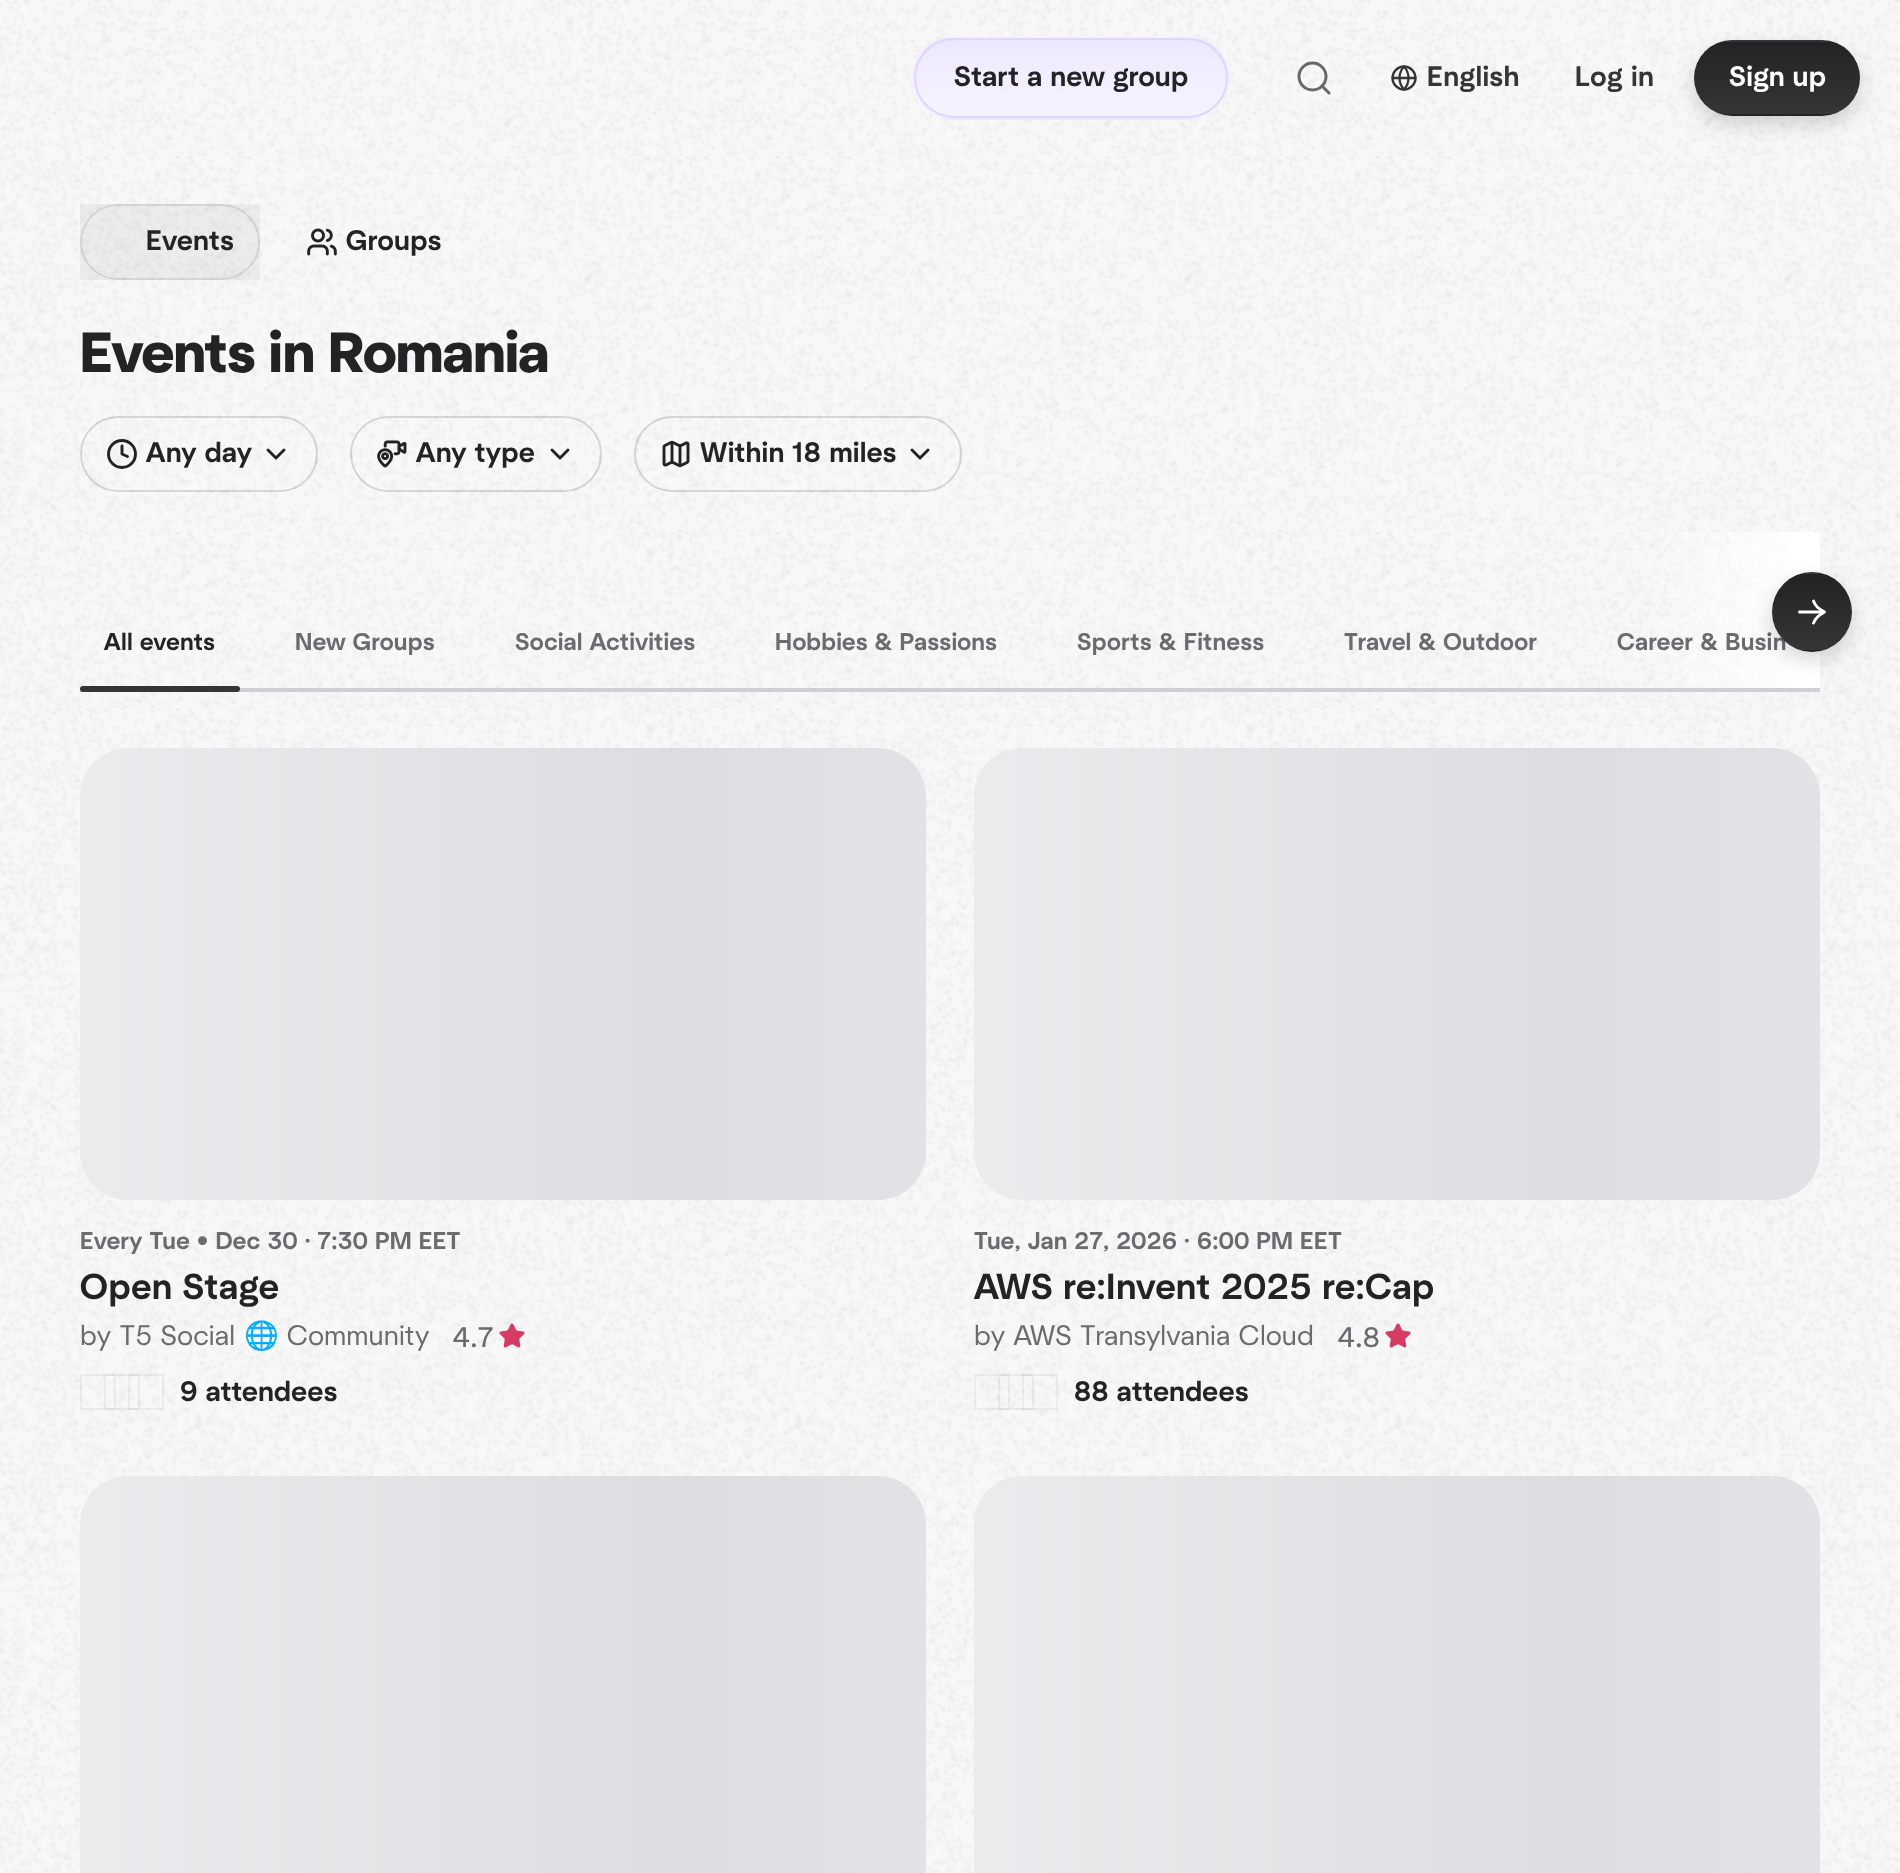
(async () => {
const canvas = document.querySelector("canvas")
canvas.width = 1900
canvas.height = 1873
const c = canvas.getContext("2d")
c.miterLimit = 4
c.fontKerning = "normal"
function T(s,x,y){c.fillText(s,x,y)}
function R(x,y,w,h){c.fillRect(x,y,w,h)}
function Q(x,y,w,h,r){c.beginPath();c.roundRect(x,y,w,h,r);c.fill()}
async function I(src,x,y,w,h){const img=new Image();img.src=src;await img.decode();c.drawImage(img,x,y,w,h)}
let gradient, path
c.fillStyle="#fff"
R(0,0,1900,1873)
await I("1.png",0,156,1900,1717)
await I("2.png",0,0,1900,156)
c.save()
c.beginPath()
c.roundRect(912,36,318,84,42)
c.clip()
gradient = c.createLinearGradient(1071,-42,1071,38)
gradient.addColorStop(0,"#eee8ff")
gradient.addColorStop(1,"#f6f3ff")
c.fillStyle = gradient
R(941,36,260,2)
gradient = c.createLinearGradient(1071,38,1071,118)
gradient.addColorStop(0,"#eee8ff")
gradient.addColorStop(1,"#f6f3ff")
c.fillStyle = gradient
R(912,38,318,80)
gradient = c.createLinearGradient(1071,118,1071,198)
gradient.addColorStop(0,"#eee8ff")
gradient.addColorStop(1,"#f6f3ff")
c.fillStyle = gradient
R(941,118,260,2)
c.restore()
c.beginPath()
c.roundRect(915,39,312,78,39)
c.strokeStyle="#ddd6fe"
c.lineWidth=2
c.stroke()
c.letterSpacing="0.55px"
c.font="500 28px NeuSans"
c.fillStyle="#232326"
T("Start a new group",954,86)
path = new Path2D("M1329 93l-7-7")
c.strokeStyle="#69696c"
c.lineWidth=3
c.lineCap="round"
c.lineJoin="round"
c.stroke(path)
c.beginPath()
c.arc(1312.5,76.5,13.5,0,7)
c.stroke()
c.beginPath()
c.arc(1404,78,11.5,0,7)
c.strokeStyle="#353538"
c.lineWidth=2.3
c.stroke()
path = new Path2D("M1404 66.5c-6 6.5-6 16.5 0 23c6-6.5 6-16.5 0-23m-11.5 11.5h23")
c.stroke(path)
c.fillStyle="#353538"
T("English",1427,86)
T("Log in",1575,86)
c.fillStyle="#00001029"
c.filter="blur(10px)"
c.beginPath()
c.roundRect(1694,48,166,76,38)
c.fill()
c.filter="none"
c.save()
c.beginPath()
c.roundRect(1694,40,166,76,38)
c.clip()
gradient = c.createLinearGradient(1777,-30,1777,42)
gradient.addColorStop(0,"#232326")
gradient.addColorStop(1,"#353538")
c.fillStyle = gradient
R(1720,40,114,2)
gradient = c.createLinearGradient(1777,42,1777,114)
gradient.addColorStop(0,"#232326")
gradient.addColorStop(1,"#353538")
c.fillStyle = gradient
R(1694,42,166,72)
gradient = c.createLinearGradient(1777,114,1777,186)
gradient.addColorStop(0,"#232326")
gradient.addColorStop(1,"#353538")
c.fillStyle = gradient
R(1720,114,114,2)
c.restore()
c.fillStyle="#fff"
T("Sign up",1729,86)
await I("3.png",80,156,1740,376)
c.fillStyle="#1212150d"
R(80,204,180,76)
c.beginPath()
c.roundRect(81,205,178,74,37)
c.strokeStyle="#1212151a"
c.lineWidth=2
c.lineJoin="miter"
c.stroke()
c.fillStyle="#232326"
T("Events",146,250)
await I("4.png",307,228,30,28)
T("Groups",346,250)
c.letterSpacing="0px"
c.font="bold 56px NeuSans"
T("Events in Romania",80,372)
c.beginPath()
c.roundRect(81,417,236,74,37)
c.strokeStyle="#12121526"
c.stroke()
c.beginPath()
c.arc(122,454,13.5,0,7)
c.strokeStyle="#232326"
c.lineWidth=2.9
c.stroke()
path = new Path2D("M122 446v8l5.5 2.5")
c.lineJoin="round"
c.stroke(path)
c.letterSpacing="0.55px"
c.font="500 28px NeuSans"
T("Any day",146,462)
path = new Path2D("M268 450l8 8l8-8")
c.stroke(path)
c.beginPath()
c.roundRect(351,417,250,74,37)
c.strokeStyle="#12121526"
c.lineWidth=2
c.lineJoin="miter"
c.stroke()
await I("5.png",377,440,30,28)
T("Any type",416,462)
path = new Path2D("M552 450l8 8l8-8")
c.strokeStyle="#232326"
c.lineWidth=2.9
c.lineJoin="round"
c.stroke(path)
c.beginPath()
c.roundRect(635,417,326,74,37)
c.strokeStyle="#12121526"
c.lineWidth=2
c.lineJoin="miter"
c.stroke()
await I("6.png",662,440,28,28)
T("Within 18 miles",700,462)
path = new Path2D("M912 450l8 8l8-8")
c.strokeStyle="#232326"
c.lineWidth=2.9
c.lineJoin="round"
c.stroke(path)
c.fillStyle="#fff"
R(1650,532,170,156)
await I("7.png",80,532,1709,156)
c.fillStyle="#d0d0d4"
R(80,688,1740,4)
c.letterSpacing="0.5px"
c.font="500 24px NeuSans"
c.fillStyle="#232326"
T("All events",104,650)
c.fillStyle="#353538"
Q(80,686,160,6,3)
c.fillStyle="#696b6f"
T("New Groups",295,650)
T("Social Activities",515,650)
T("Hobbies & Passions",775,650)
T("Sports & Fitness",1077,650)
T("Travel & Outdoor",1344,650)
T("Career & Busin",1617,650)
c.fillStyle="#00001029"
c.filter="blur(10px)"
c.beginPath()
c.roundRect(1772,580,80,80,40)
c.fill()
c.filter="none"
c.save()
c.beginPath()
c.roundRect(1772,572,80,80,40)
c.clip()
gradient = c.createLinearGradient(1812,498,1812,574)
gradient.addColorStop(0,"#232326")
gradient.addColorStop(1,"#353538")
c.fillStyle = gradient
R(1799,572,26,2)
gradient = c.createLinearGradient(1812,574,1812,650)
gradient.addColorStop(0,"#232326")
gradient.addColorStop(1,"#353538")
c.fillStyle = gradient
R(1772,574,80,76)
gradient = c.createLinearGradient(1812,650,1812,726)
gradient.addColorStop(0,"#232326")
gradient.addColorStop(1,"#353538")
c.fillStyle = gradient
R(1799,650,26,2)
c.restore()
path = new Path2D("M1813.5 601c2 5.5 5 7.5 11 11c-6 3.5-8.5 5.5-11 11m-14-11h24")
c.strokeStyle="#fff"
c.stroke(path)
await I("8.png",80,708,1740,40)
gradient = c.createLinearGradient(80,974,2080,974)
gradient.addColorStop(0,"#ebebee")
gradient.addColorStop(.3,"#dddde1")
gradient.addColorStop(.6,"#ebebee")
c.fillStyle = gradient
Q(80,748,846,452,48)
c.fillStyle="#696b6f"
T("Every Tue • Dec 30 · 7:30 PM EET",80,1249)
c.letterSpacing="0.75px"
c.font="500 36px NeuSans"
c.fillStyle="#232326"
T("Open Stage",80,1299)
c.letterSpacing="0.55px"
c.font="28px 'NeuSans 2'"
c.fillStyle="#696b6f"
T("by T5 Social",80,1345)
c.font="28px Noto Color Emoji"
T("🌐",244,1345)
c.font="28px 'NeuSans 2'"
T("Community",287,1345)
c.font="28px NeuSans"
T("4.7",452,1347)
await I("9.png",499,1323,26,25)
c.strokeStyle="#1212150d"
c.lineWidth=2
c.lineJoin="miter"
c.strokeRect(81,1375,34,34)
c.strokeRect(105,1375,34,34)
c.strokeRect(129,1375,34,34)
c.font="500 28px NeuSans"
c.fillStyle="#232326"
T("9 attendees",180,1401)
gradient = c.createLinearGradient(974,974,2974,974)
gradient.addColorStop(0,"#ebebee")
gradient.addColorStop(.3,"#dddde1")
gradient.addColorStop(.6,"#ebebee")
c.fillStyle = gradient
Q(974,748,846,452,48)
c.letterSpacing="0.5px"
c.font="500 24px NeuSans"
c.fillStyle="#696b6f"
T("Tue, Jan 27, 2026 · 6:00 PM EET",974,1249)
c.letterSpacing="0.75px"
c.font="500 36px NeuSans"
c.fillStyle="#232326"
T("AWS re:Invent 2025 re:Cap",974,1299)
c.letterSpacing="0.55px"
c.font="28px 'NeuSans 2'"
c.fillStyle="#696b6f"
T("by AWS Transylvania Cloud",974,1345)
c.font="28px NeuSans"
T("4.8",1337,1347)
await I("10.png",1385,1323,26,25)
c.strokeRect(975,1375,34,34)
c.strokeRect(999,1375,34,34)
c.strokeRect(1023,1375,34,34)
c.font="500 28px NeuSans"
c.fillStyle="#232326"
T("88 attendees",1074,1401)
gradient = c.createLinearGradient(80,1703,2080,1703)
gradient.addColorStop(0,"#ebebee")
gradient.addColorStop(.3,"#dddde1")
gradient.addColorStop(.6,"#ebebee")
c.fillStyle = gradient
Q(80,1476,846,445,48)
gradient = c.createLinearGradient(974,1703,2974,1703)
gradient.addColorStop(0,"#ebebee")
gradient.addColorStop(.3,"#dddde1")
gradient.addColorStop(.6,"#ebebee")
c.fillStyle = gradient
Q(974,1476,846,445,48)
})()
